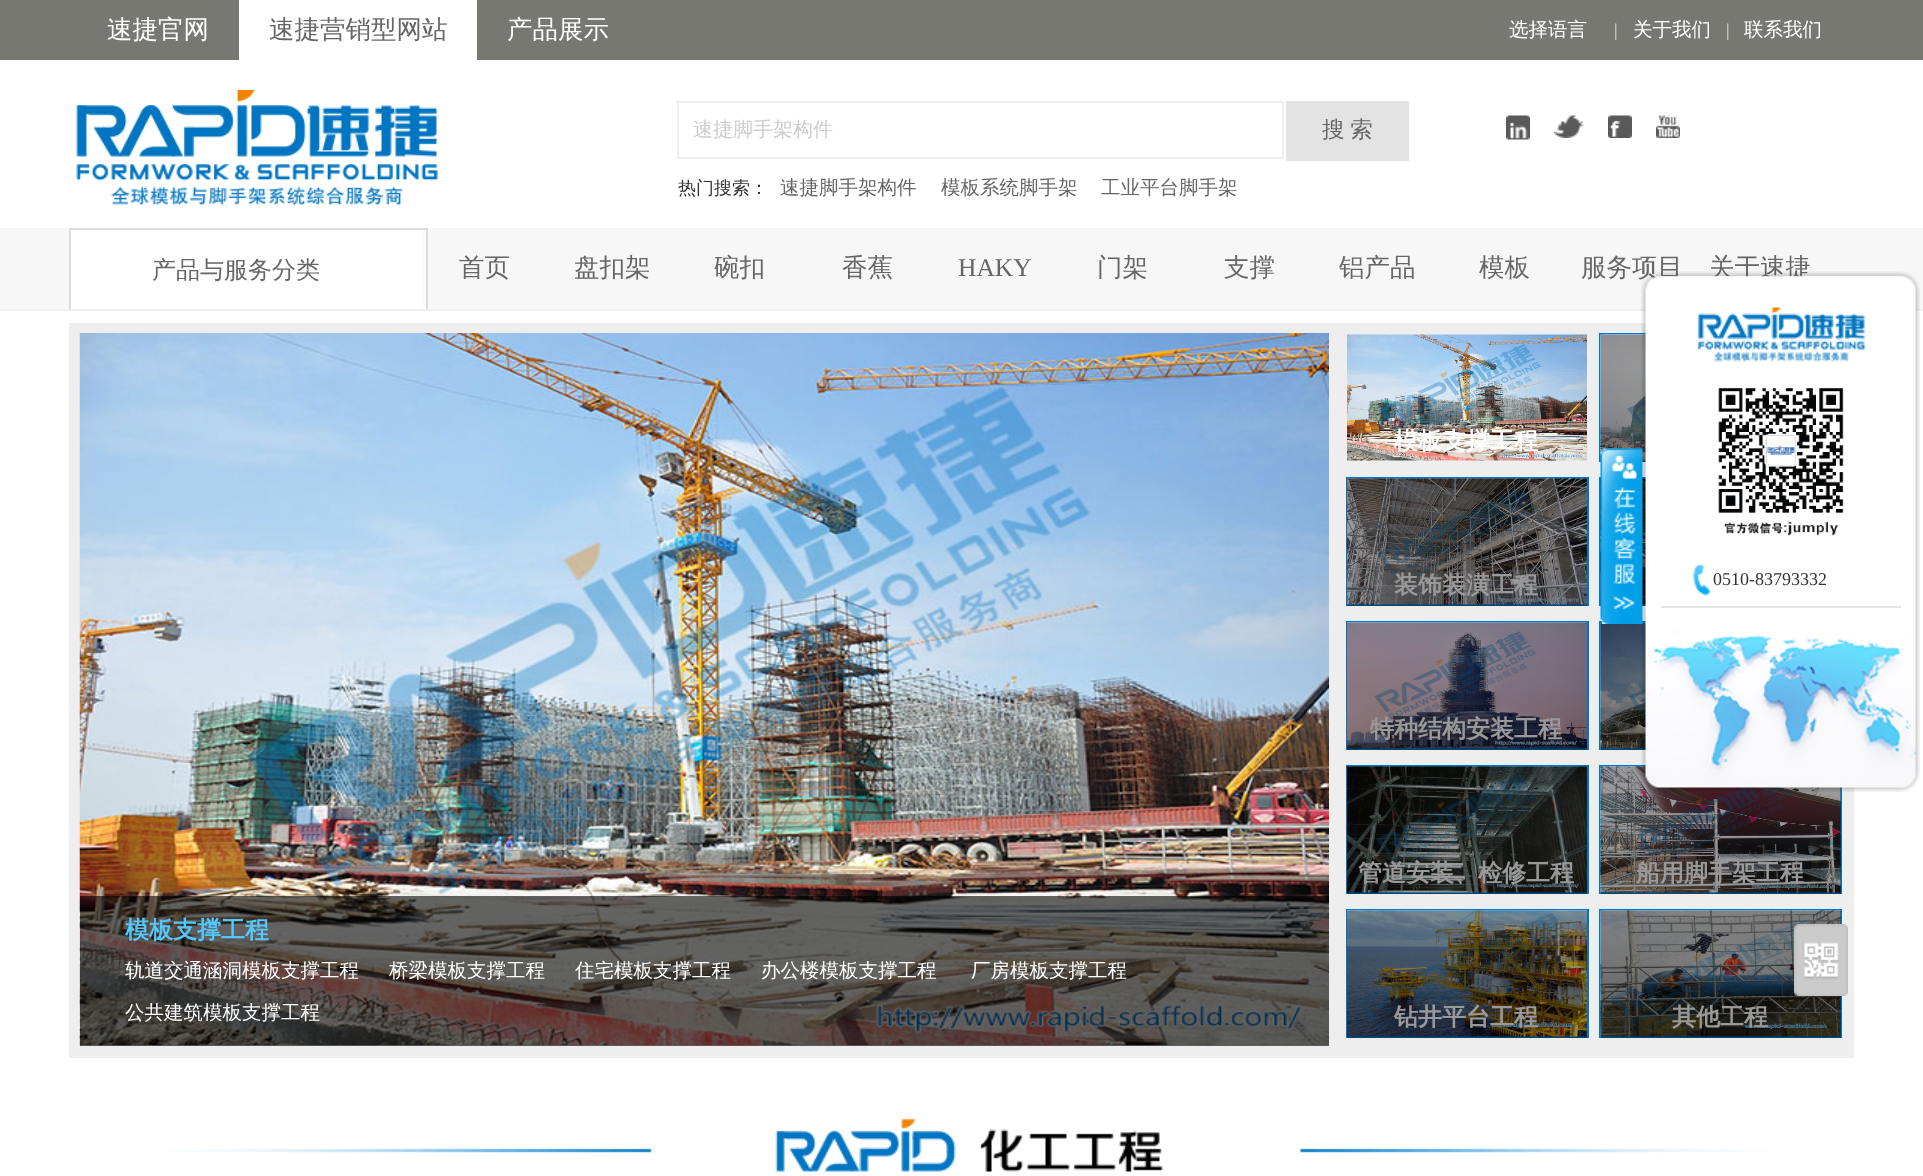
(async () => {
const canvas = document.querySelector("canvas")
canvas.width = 1923
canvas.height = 1176
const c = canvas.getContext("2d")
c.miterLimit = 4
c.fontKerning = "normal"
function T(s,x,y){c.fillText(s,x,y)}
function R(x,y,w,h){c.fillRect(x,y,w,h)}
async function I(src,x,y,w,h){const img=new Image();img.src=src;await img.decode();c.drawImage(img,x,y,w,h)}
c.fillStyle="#fff"
R(0,0,1923,1176)
c.fillStyle="#787873"
R(0,0,1923,60)
c.font="500 25.5px WenQuanYi Zen Hei"
c.fillStyle="#fff"
T("速捷官网",107,38)
R(239,0,238,60)
c.fillStyle="#666"
T("速捷营销型网站",269,38)
c.fillStyle="#fff"
T("产品展示",507,38)
c.font="500 19.5px WenQuanYi Zen Hei"
T("选择语言",1509,36)
c.font="18px Liberation Serif"
c.fillStyle="#dedede"
T("|",1614,36)
c.font="500 19.5px WenQuanYi Zen Hei"
c.fillStyle="#fff"
T("关于我们",1633,36)
c.font="18px Liberation Serif"
c.fillStyle="#dedede"
T("|",1726,36)
c.font="500 19.5px WenQuanYi Zen Hei"
c.fillStyle="#fff"
T("联系我们",1744,36)
await I("1.png",76,90,362,116)
c.strokeStyle="#efefef"
c.lineWidth=2
c.strokeRect(678,102,605,56)
c.font="500 20px WenQuanYi Zen Hei"
c.fillStyle="#ccc"
T("速捷脚手架构件",693,136)
c.fillStyle="#e3e3e3"
R(1286,101,123,60)
c.wordSpacing="-1px"
c.font="500 22.5px WenQuanYi Zen Hei"
c.fillStyle="#666"
T("搜 索",1322,137)
await I("2.png",1506,115,24,25)
await I("3.png",1554,115,30,23)
await I("4.png",1608,115,24,23)
await I("5.png",1656,115,24,23)
c.wordSpacing="0px"
c.font="500 18px WenQuanYi Zen Hei"
c.fillStyle="#333"
T("热门搜索：",678,194)
c.font="500 19.5px WenQuanYi Zen Hei"
c.fillStyle="#666"
T("速捷脚手架构件",780,194)
T("模板系统脚手架",941,194)
T("工业平台脚手架",1101,194)
c.fillStyle="#f7f7f7"
R(0,228,1923,81)
c.fillStyle="#efefef"
R(0,309,1923,2)
c.fillStyle="#fbfbfb"
R(423,230,3,79)
c.fillStyle="#ddd"
R(69,228,359,2)
R(426,228,2,81)
R(69,228,2,81)
c.fillStyle="#fff"
R(71,230,352,79)
c.font="500 24px WenQuanYi Zen Hei"
c.fillStyle="#666"
T("产品与服务分类",152,278)
c.font="500 25.5px WenQuanYi Zen Hei"
T("首页",459,276)
T("盘扣架",574,276)
T("碗扣",714,276)
T("香蕉",842,276)
c.font="25.5px Liberation Serif"
T("HAKY",958,276)
c.font="500 25.5px WenQuanYi Zen Hei"
T("门架",1097,276)
T("支撑",1224,276)
T("铝产品",1339,276)
T("模板",1479,276)
T("服务项目",1581,276)
T("关于速捷",1709,276)
c.fillStyle="#eee"
R(69,323,1785,735)
await I("6.png",79,333,1250,713)
c.fillStyle="#00000099"
R(80,896,1249,150)
c.font="bold 24px WenQuanYi Zen Hei"
c.fillStyle="#53c8ff"
T("模板支撑工程",125,938)
c.font="500 19.5px WenQuanYi Zen Hei"
c.fillStyle="#fff"
T("轨道交通涵洞模板支撑工程",125,977)
T("桥梁模板支撑工程",389,977)
T("住宅模板支撑工程",575,977)
T("办公楼模板支撑工程",761,977)
T("厂房模板支撑工程",971,977)
T("公共建筑模板支撑工程",125,1019)
await I("7.png",1347,334,240,127)
c.font="bold 24px WenQuanYi Zen Hei"
T("模板支撑工程",1394,449)
c.strokeStyle="#0075c1"
c.strokeRect(1600,334,241,127)
await I("8.png",1600,334,46,127)
c.fillStyle="#00000066"
R(1601,335,45,127)
c.strokeRect(1347,478,241,127)
await I("9.png",1347,478,240,127)
c.fillStyle="#fff"
T("装饰装潢工程",1394,593)
c.fillStyle="#00000066"
R(1347,479,240,127)
c.strokeRect(1600,478,241,127)
await I("10.png",1600,478,46,127)
R(1642,479,4,127)
c.strokeRect(1347,622,241,127)
await I("11.png",1347,622,240,127)
c.fillStyle="#fff"
T("特种结构安装工程",1370,737)
c.fillStyle="#00000066"
R(1347,623,240,127)
c.strokeRect(1600,622,241,127)
await I("12.png",1600,622,46,127)
R(1601,623,45,127)
c.strokeRect(1347,766,241,127)
await I("13.png",1347,766,240,127)
c.fillStyle="#fff"
T("管道安装、检修工程",1358,881)
c.fillStyle="#00000066"
R(1347,767,240,127)
c.strokeRect(1600,766,241,127)
await I("14.png",1600,766,241,127)
c.fillStyle="#fff"
T("船用脚手架工程",1636,881)
c.fillStyle="#00000066"
R(1601,767,240,127)
c.strokeRect(1347,910,241,127)
await I("15.png",1347,910,240,127)
c.fillStyle="#fff"
T("钻井平台工程",1394,1025)
c.fillStyle="#00000066"
R(1347,911,240,127)
c.strokeRect(1600,910,241,127)
await I("16.png",1600,910,241,127)
c.fillStyle="#fff"
T("其他工程",1672,1025)
c.fillStyle="#00000066"
R(1601,911,240,127)
await I("18.png",1641,271,279,521)
await I("17.png",1600,448,43,176)
await I("19.png",1718,388,126,148)
c.fillStyle="#e6e5e4"
R(1661,606,240,2)
await I("20.png",1693,563,18,33)
c.font="18px Liberation Serif"
c.fillStyle="#333"
T("0510-83793332",1713,585)
await I("21.png",1794,924,54,72)
await I("22.png",167,1118,1600,54)
})()
